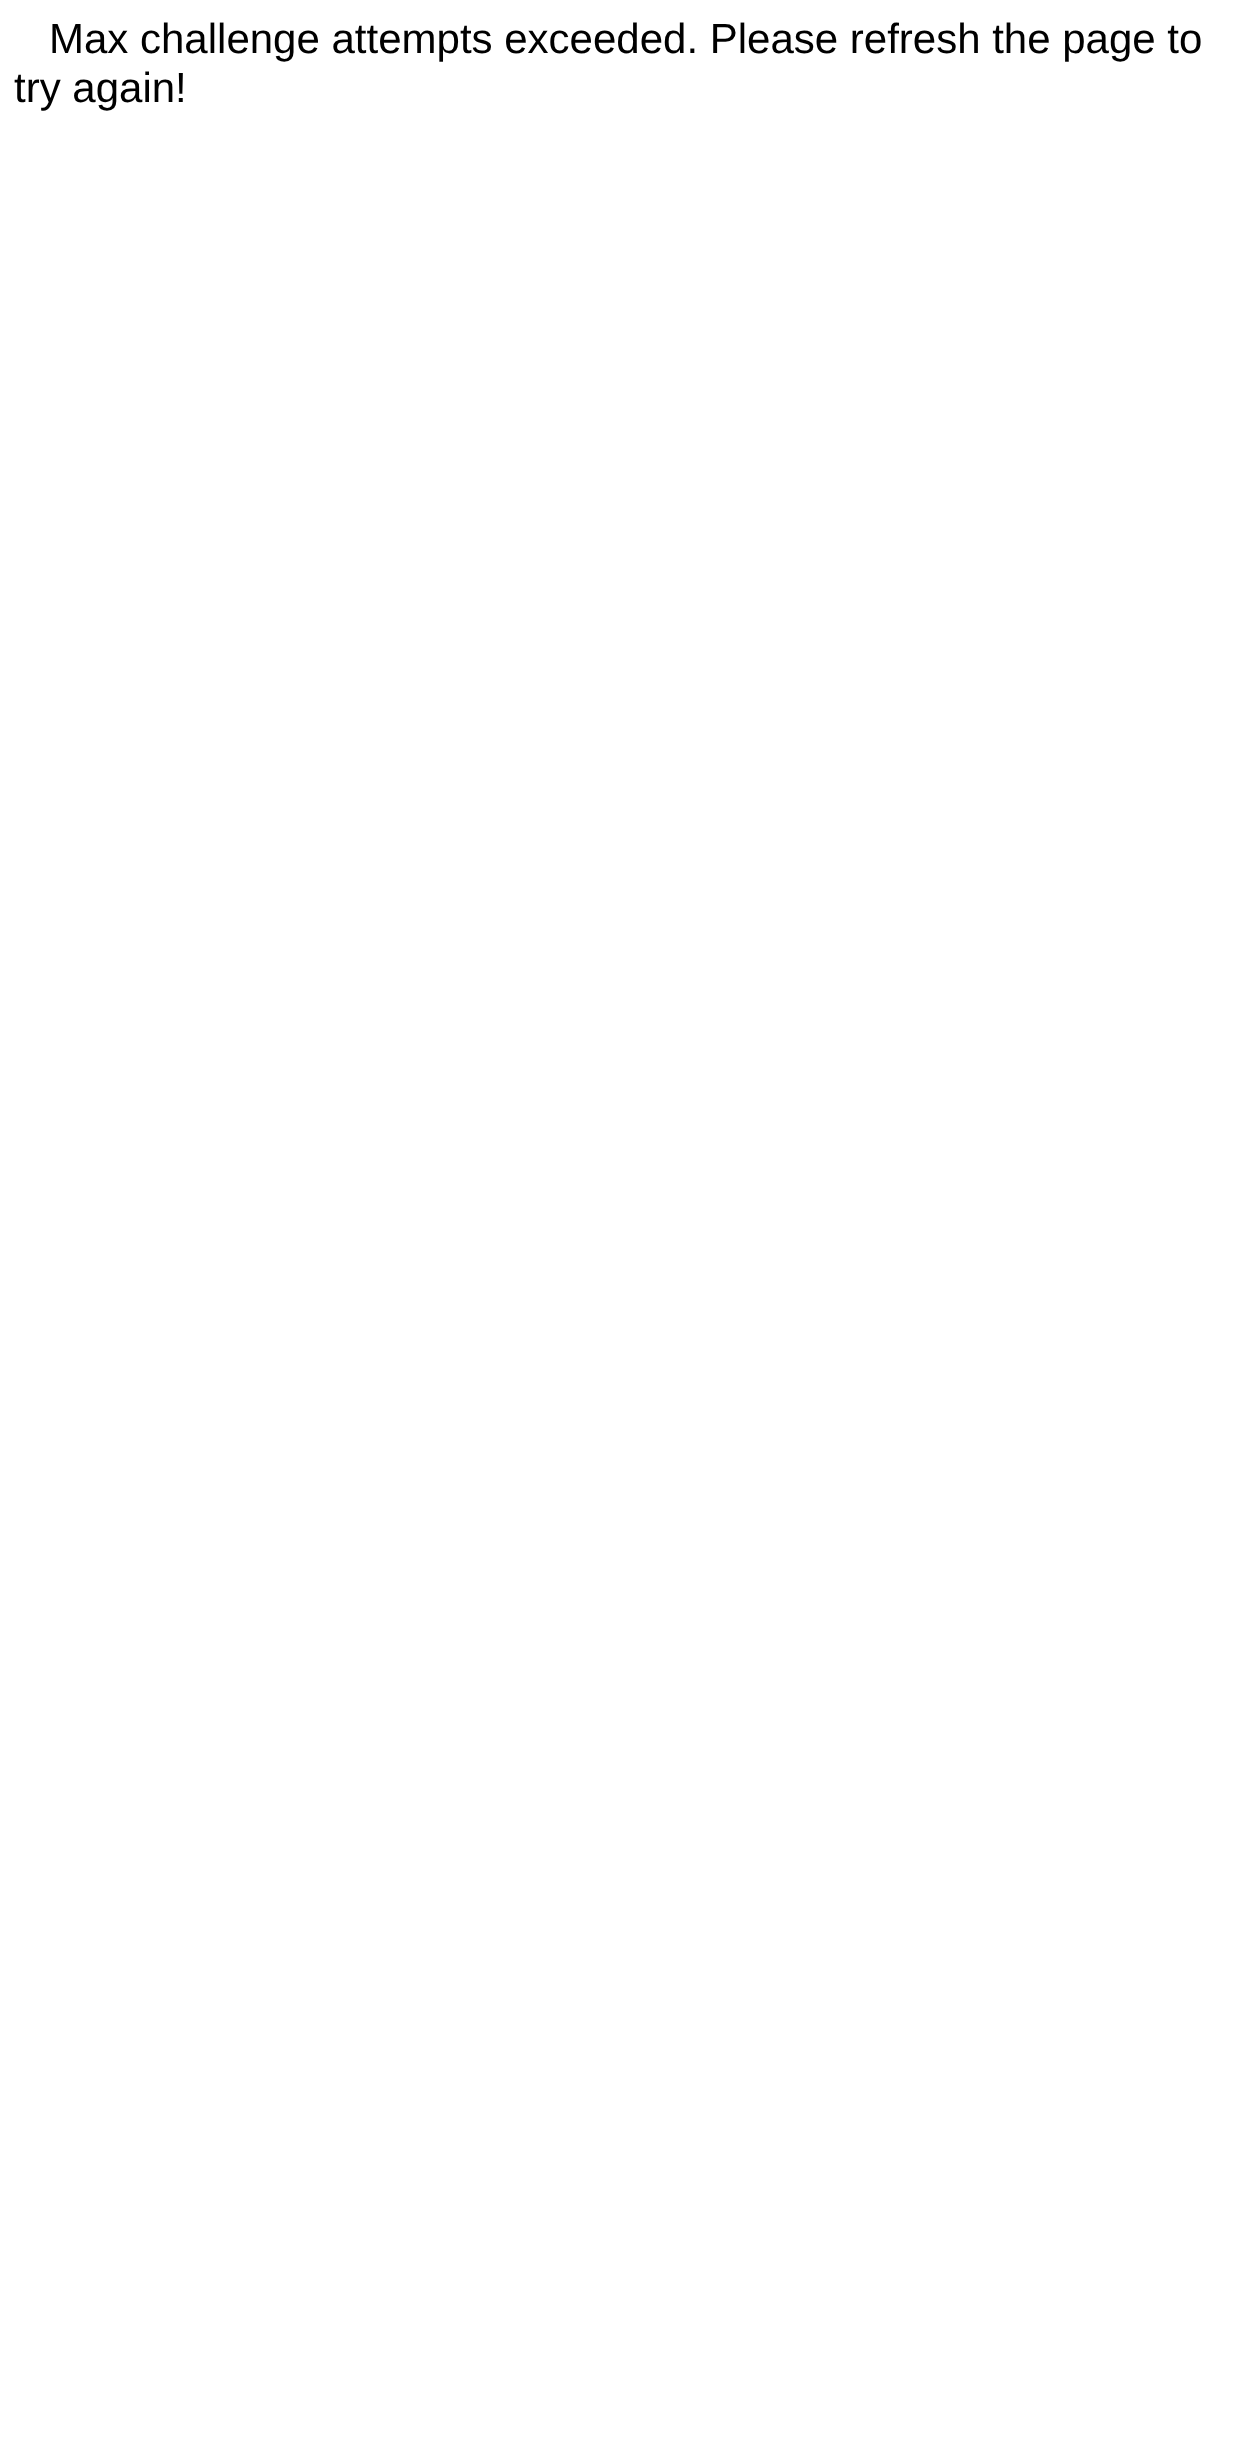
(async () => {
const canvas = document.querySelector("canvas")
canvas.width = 1248
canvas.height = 2452
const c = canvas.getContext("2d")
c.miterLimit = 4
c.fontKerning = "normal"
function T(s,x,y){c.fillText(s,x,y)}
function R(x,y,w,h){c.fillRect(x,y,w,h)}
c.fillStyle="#fff"
R(0,0,1248,2452)
c.font="42px Liberation Sans"
c.fillStyle="#000"
T("Max challenge attempts exceeded. Please refresh the page to",49,53)
T("try again!",14,102)
})()
